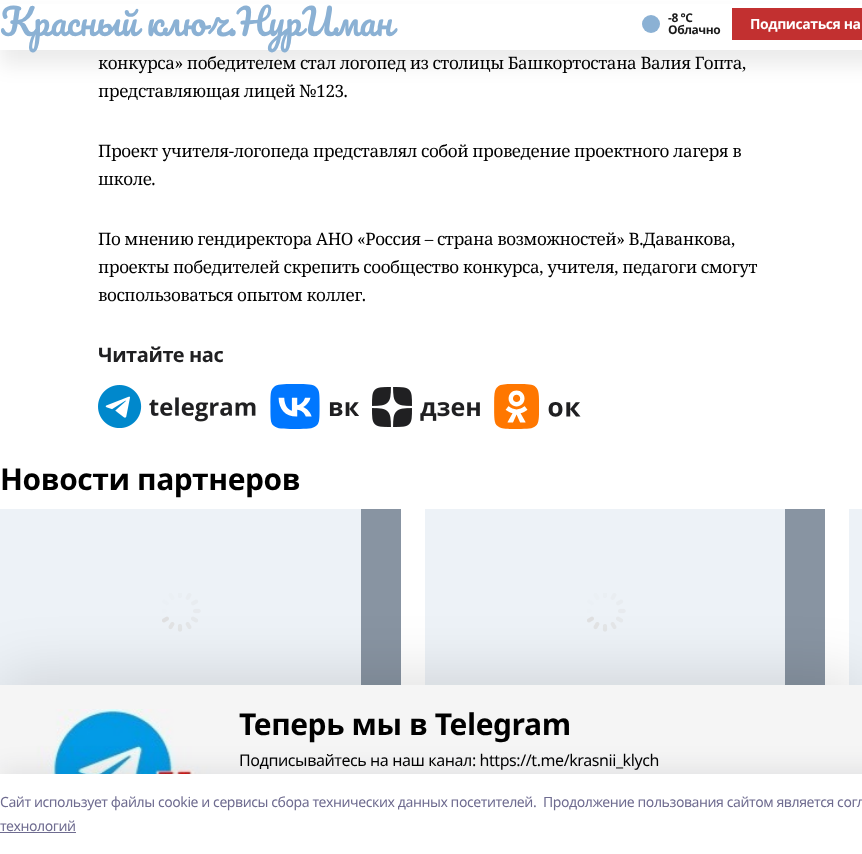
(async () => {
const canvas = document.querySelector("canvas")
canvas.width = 862
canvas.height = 854
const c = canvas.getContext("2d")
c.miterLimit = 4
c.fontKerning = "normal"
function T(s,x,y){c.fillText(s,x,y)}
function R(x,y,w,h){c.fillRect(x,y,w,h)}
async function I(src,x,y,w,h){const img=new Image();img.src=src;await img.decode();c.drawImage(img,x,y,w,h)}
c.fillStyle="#fff"
R(0,0,862,854)
c.fillStyle="#00000014"
c.filter="blur(10px)"
c.beginPath()
c.rect(0,15,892,50)
c.fill()
c.filter="none"
c.fillStyle="#fff"
R(0,4,862,46)
c.letterSpacing="-0.42px"
c.font="36px Pacifico"
c.fillStyle="#8bb1d4"
T("Красный ключ.НурИман",0,36)
c.beginPath()
c.arc(651,24,9,0,7)
c.fill()
c.font="bold 12px Noto Sans"
c.fillStyle="#1a1a1a"
T("-8 °С",668,22)
T("Облачно",668,34)
c.fillStyle="#c23030"
R(732,8,130,32)
c.font="bold 14px Noto Sans"
c.fillStyle="#fff"
T("Подписаться на",750,29)
c.font="17px Noto Serif"
c.fillStyle="#000"
T("конкурса» победителем стал логопед из столицы Башкортостана Валия Гопта,",98,69)
T("представляющая лицей №123.",98,97)
T("Проект учителя-логопеда представлял собой проведение проектного лагеря в",98,157)
T("школе.",98,185)
T("По мнению гендиректора АНО «Россия – страна возможностей» В.Даванкова,",98,245)
T("проекты победителей скрепить сообщество конкурса, учителя, педагоги смогут",98,273)
T("воспользоваться опытом коллег.",98,301)
c.font="bold 20px Noto Sans"
c.fillStyle="#202022"
T("Читайте нас",98,362)
await I("1.png",98,385,158,43)
await I("2.png",270,384,89,45)
await I("3.png",372,387,108,40)
await I("4.png",494,384,87,45)
c.font="bold 30px Noto Sans"
c.fillStyle="#000"
T("Новости партнеров",0,490)
c.fillStyle="#8894a2"
R(361,509,40,176)
c.fillStyle="#edf2f7"
R(0,509,361,176)
await I("5.png",162,593,39,39)
c.fillStyle="#8894a2"
R(785,509,40,176)
c.fillStyle="#edf2f7"
R(425,509,360,176)
await I("5.png",587,593,39,39)
R(849,509,13,176)
c.fillStyle="#0000001f"
c.filter="blur(30px)"
c.beginPath()
c.rect(0,675,862,169)
c.fill()
c.filter="none"
c.fillStyle="#f5f5f5"
R(0,685,862,89)
await I("7.png",214,709,1,65)
await I("6.png",0,709,215,65)
c.fillStyle="#000"
T("Теперь мы в Telegram",239,735)
c.font="16px Noto Sans"
T("Подписывайтесь на наш канал: https://t.me/krasnii_klych",239,766)
c.fillStyle="#14142b14"
c.filter="blur(11.5px)"
c.beginPath()
c.rect(0,768,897,80)
c.fill()
c.filter="none"
c.fillStyle="#fff"
R(0,774,862,80)
c.font="14px Noto Sans"
c.fillStyle="#6f6c90"
T("Cайт использует файлы cookie и сервисы сбора технических данных посетителей.",0,807)
T("Продолжение пользования сайтом является согл",543,807)
T("технологий",0,831)
R(0,832,76,1)
})()
